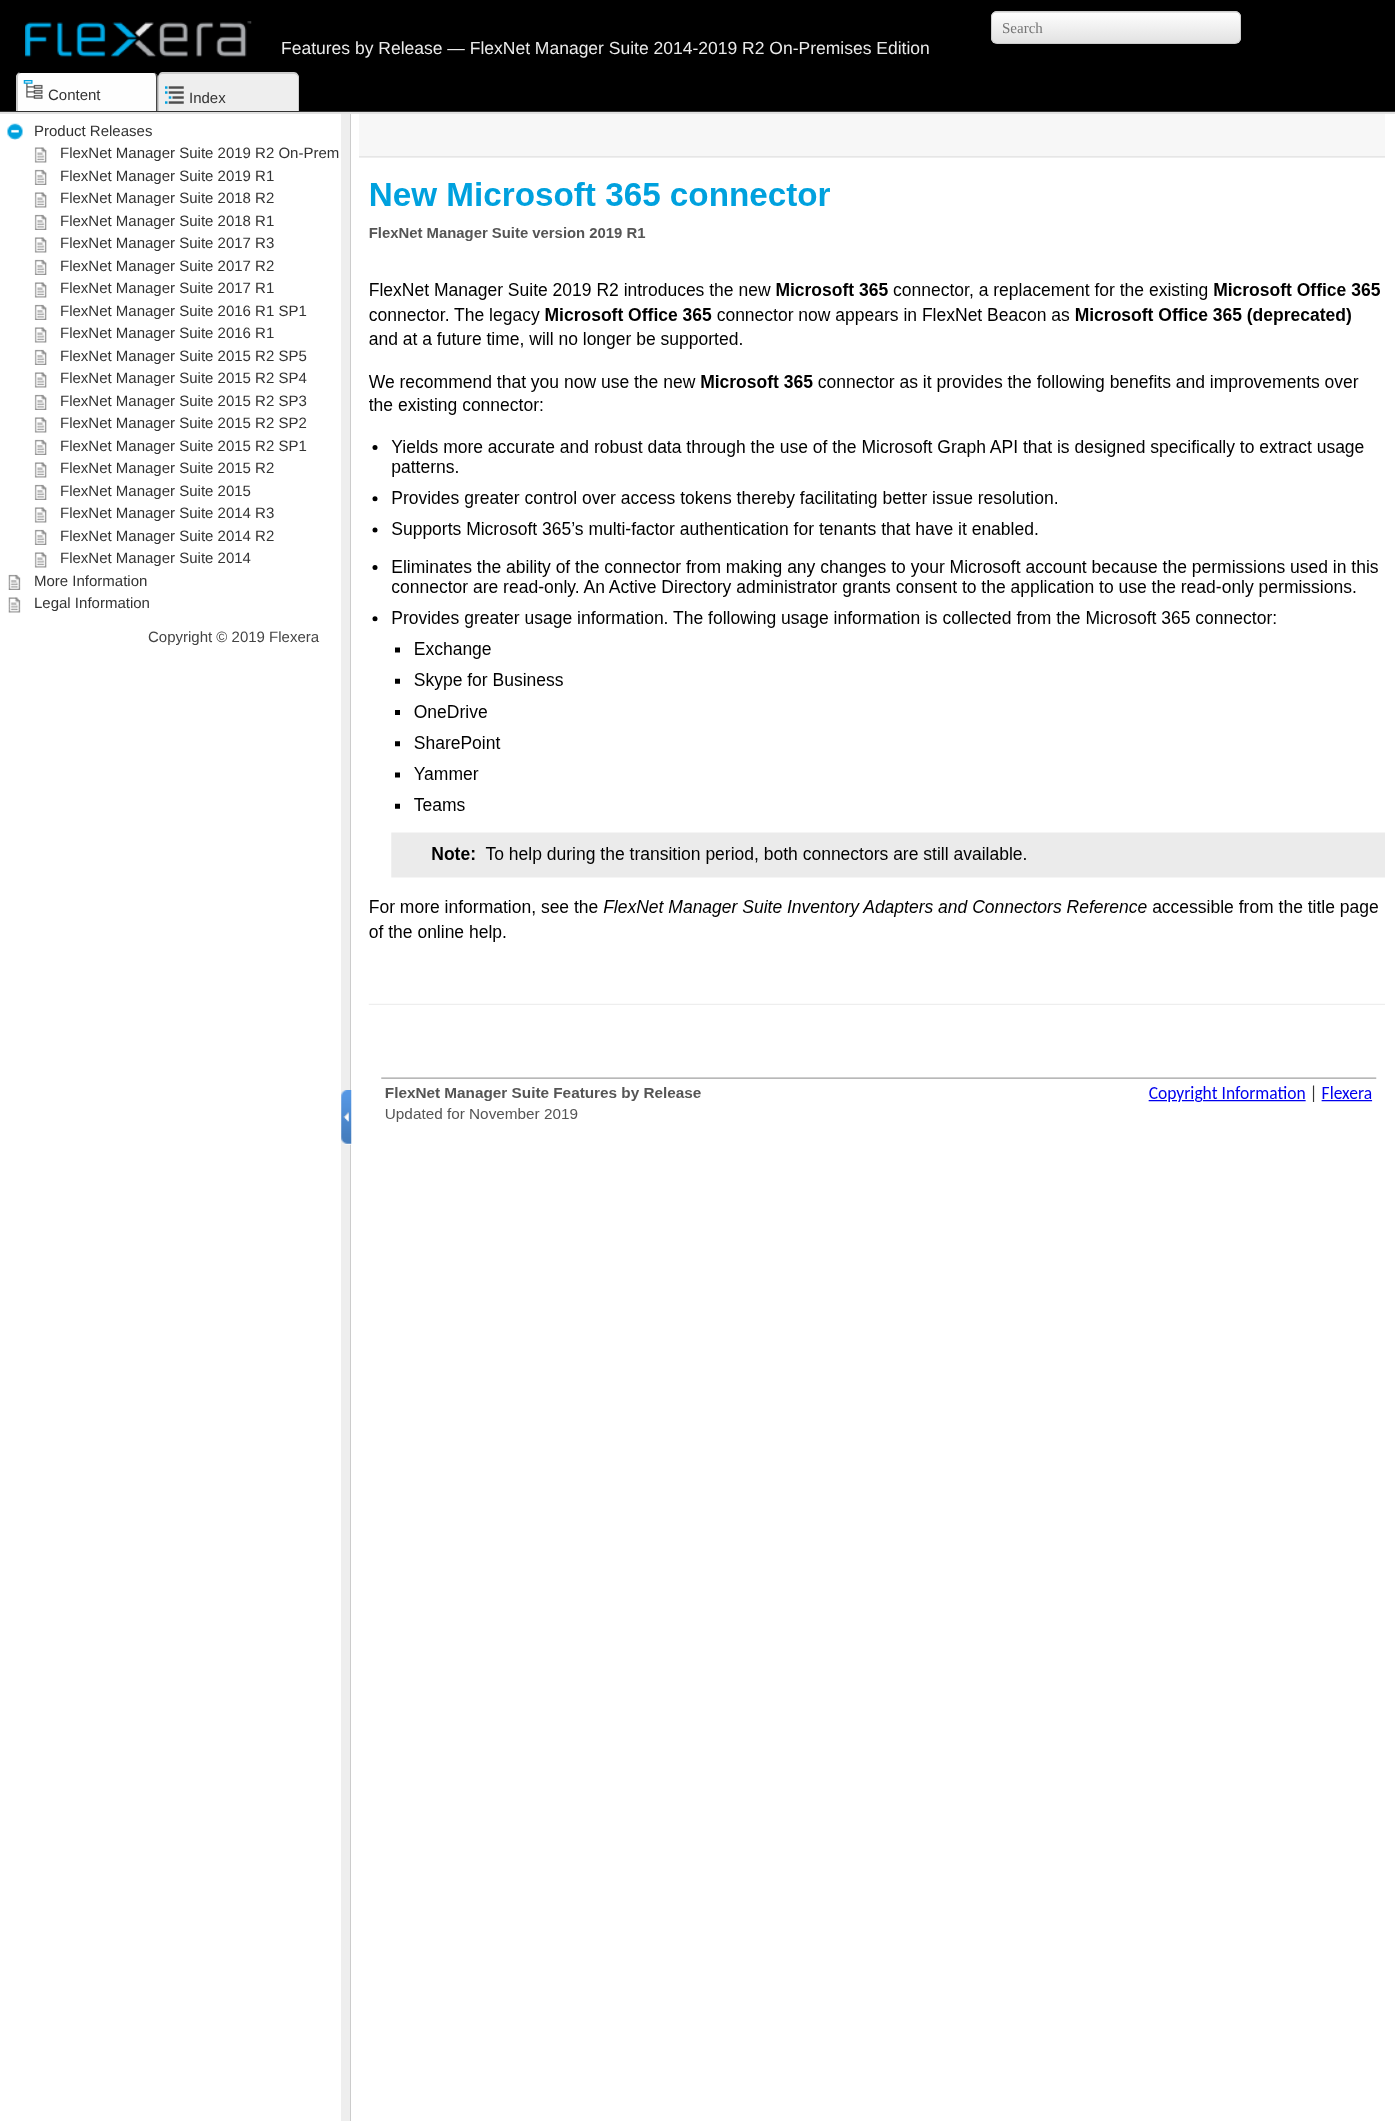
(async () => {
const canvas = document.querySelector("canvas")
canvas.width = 1395
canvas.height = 2124
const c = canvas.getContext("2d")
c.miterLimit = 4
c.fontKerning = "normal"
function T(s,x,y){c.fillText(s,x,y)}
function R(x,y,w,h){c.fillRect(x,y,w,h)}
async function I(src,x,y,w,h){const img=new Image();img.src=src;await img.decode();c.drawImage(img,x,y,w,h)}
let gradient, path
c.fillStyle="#fff"
R(0,0,1395,2124)
c.fillStyle="#333"
R(0,111,1395,1)
c.fillStyle="#000"
R(0,0,1395,111)
await I("1.png",25,21,227,36)
c.save()
c.beginPath()
c.roundRect(991,11,250,33,6)
c.clip()
gradient = c.createLinearGradient(1116,-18,1116,13)
gradient.addColorStop(0,"#fefefe")
gradient.addColorStop(1,"#e2e2e2")
c.fillStyle = gradient
R(991,11,250,2)
gradient = c.createLinearGradient(1116,12,1116,43)
gradient.addColorStop(0,"#fefefe")
gradient.addColorStop(1,"#e2e2e2")
c.fillStyle = gradient
R(991,13,250,30)
c.restore()
c.beginPath()
c.roundRect(991.5,11.5,249,32,5.5)
c.strokeStyle="#ccc"
c.stroke()
c.font="15px Liberation Serif"
c.fillStyle="#757575"
T("Search",1002,33)
c.font="17.5px Liberation Sans"
c.fillStyle="#ebebeb"
T("Features by Release — FlexNet Manager Suite 2014-2019 R2 On-Premises Edition",281,54)
c.fillStyle="#fefefe"
c.beginPath()
c.roundRect(16,73,142,38,[5,5,0,0])
c.fill()
c.fillStyle="#474747"
path = new Path2D("M157.5 76v35h-1.5v-33c0-2.5-.5-4.5-2-5.5c1.5 0 3 2 3.5 3.5z")
c.fill(path)
c.fillStyle="#ccc"
path = new Path2D("M16 111h2v-33c0-2.5 .5-4.5 1.5-5.5h-.5c-1.5 .5-2.5 2-3 3.5z")
c.fill(path)
await I("2.png",23,80,20,19)
c.font="15px Liberation Sans"
c.fillStyle="#333"
T("Content",48,100)
c.fillStyle="#eee"
c.beginPath()
c.roundRect(158,73,141,38,[5,5,0,0])
c.fill()
c.fillStyle="#ccc"
path = new Path2D("M162 72h132c3 0 5 3 5 6v33h-141v-33c0-3 2-6 4-6zm0 2h132c2 0 4 1 4 4v33h-139v-33c0-3 1-4 3-4z")
c.fill(path,"evenodd")
await I("3.png",165,86,19,18)
c.fillStyle="#333"
T("Index",189,103)
c.fillStyle="#e1e1e1"
R(0,112,1395,2)
await I("4.png",7,123,16,17)
c.fillStyle="#333"
T("Product Releases",34,136)
await I("5.png",34,147,13,16)
T("FlexNet Manager Suite 2019 R2 On-Prem",60,158)
await I("6.png",34,169,13,16)
T("FlexNet Manager Suite 2019 R1",60,181)
await I("5.png",34,192,13,16)
T("FlexNet Manager Suite 2018 R2",60,203)
await I("6.png",34,214,13,16)
T("FlexNet Manager Suite 2018 R1",60,226)
await I("5.png",34,237,13,16)
T("FlexNet Manager Suite 2017 R3",60,248)
await I("6.png",34,259,13,16)
T("FlexNet Manager Suite 2017 R2",60,271)
await I("5.png",34,282,13,16)
T("FlexNet Manager Suite 2017 R1",60,293)
await I("6.png",34,304,13,16)
T("FlexNet Manager Suite 2016 R1 SP1",60,316)
await I("5.png",34,327,13,16)
T("FlexNet Manager Suite 2016 R1",60,338)
await I("6.png",34,349,13,16)
T("FlexNet Manager Suite 2015 R2 SP5",60,361)
await I("5.png",34,372,13,16)
T("FlexNet Manager Suite 2015 R2 SP4",60,383)
await I("6.png",34,394,13,16)
T("FlexNet Manager Suite 2015 R2 SP3",60,406)
await I("5.png",34,417,13,16)
T("FlexNet Manager Suite 2015 R2 SP2",60,428)
await I("6.png",34,439,13,16)
T("FlexNet Manager Suite 2015 R2 SP1",60,451)
await I("5.png",34,462,13,16)
T("FlexNet Manager Suite 2015 R2",60,473)
await I("6.png",34,484,13,16)
T("FlexNet Manager Suite 2015",60,496)
await I("5.png",34,507,13,16)
T("FlexNet Manager Suite 2014 R3",60,518)
await I("6.png",34,529,13,16)
T("FlexNet Manager Suite 2014 R2",60,541)
await I("5.png",34,552,13,16)
T("FlexNet Manager Suite 2014",60,563)
await I("7.png",8,574,13,16)
T("More Information",34,586)
await I("8.png",8,597,13,16)
T("Legal Information",34,608)
c.fillStyle="#444"
T("Copyright © 2019 Flexera",148,642)
c.fillStyle="#eee"
R(341,114,9,2007)
c.fillStyle="#ccc"
R(350,114,1,2007)
await I("9.png",341,1090,11,55)
await I("10.png",359,114,1026,1008)
})()
